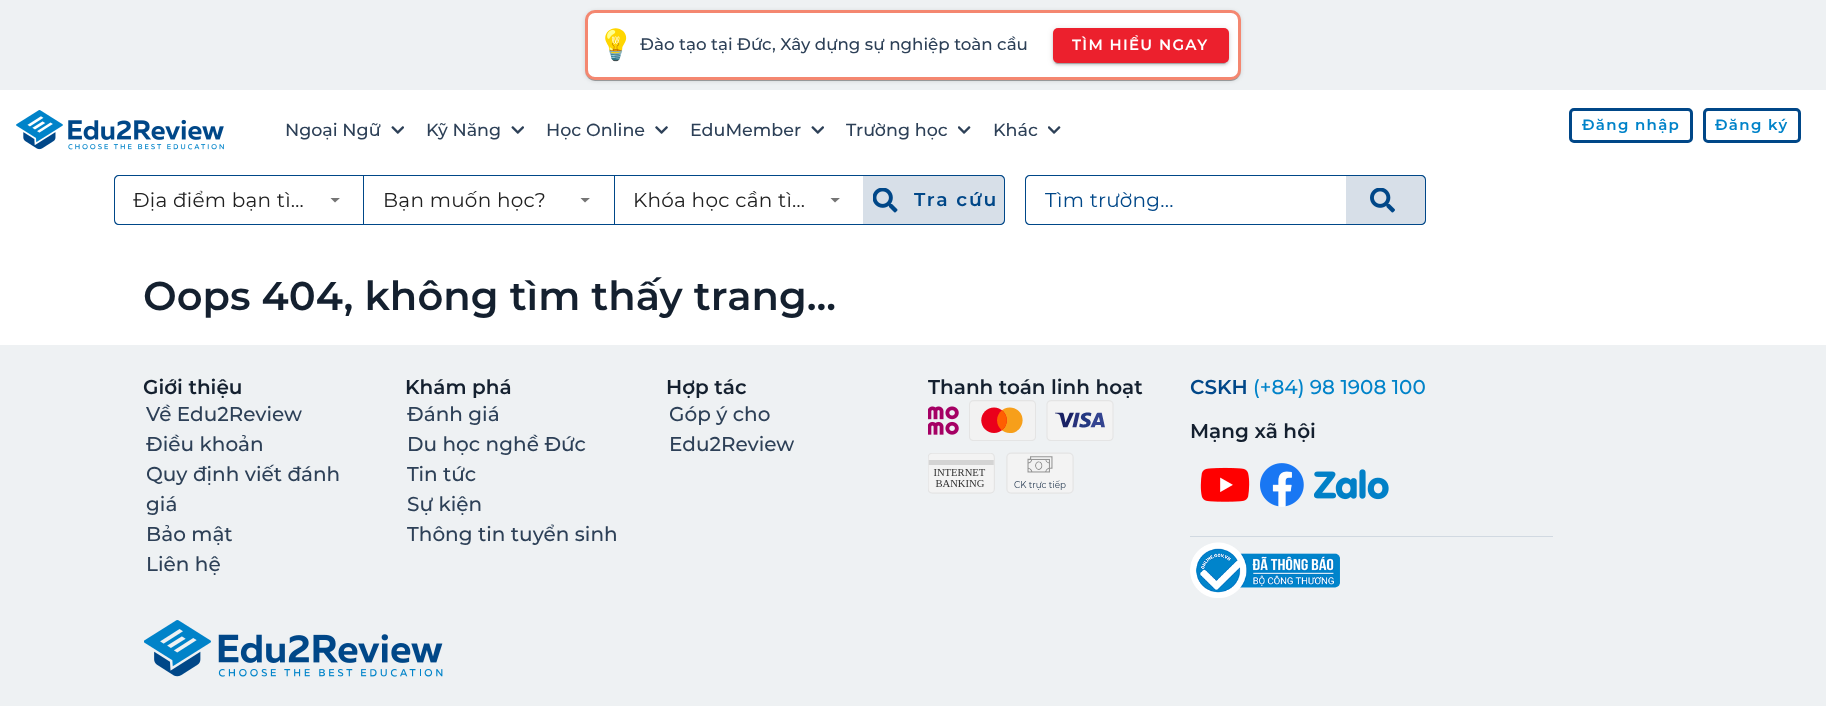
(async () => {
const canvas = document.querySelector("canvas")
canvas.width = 1826
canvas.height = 706
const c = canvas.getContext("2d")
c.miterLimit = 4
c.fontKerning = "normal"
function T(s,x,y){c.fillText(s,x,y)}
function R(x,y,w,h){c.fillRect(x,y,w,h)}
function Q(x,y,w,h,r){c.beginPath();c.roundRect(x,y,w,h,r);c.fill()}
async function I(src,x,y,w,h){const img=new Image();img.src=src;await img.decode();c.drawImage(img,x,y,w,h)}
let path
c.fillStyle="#fff"
R(0,0,1826,706)
c.fillStyle="#eef1f3"
R(0,0,1826,90)
c.fillStyle="#0000001f"
c.filter="blur(2px)"
c.beginPath()
c.roundRect(585,11,656,70,10)
c.fill()
c.filter="none"
c.fillStyle="#00000024"
c.filter="blur(0.5px)"
c.beginPath()
c.roundRect(585,11,656,70,10)
c.fill()
c.filter="none"
c.fillStyle="#00000033"
c.filter="blur(0.5px)"
c.beginPath()
c.roundRect(586,14,654,67,9)
c.fill()
c.filter="none"
c.fillStyle="#fff"
c.beginPath()
c.roundRect(586.5,11.5,653,67,8.5)
c.fill()
c.strokeStyle="#f48770"
c.lineWidth=3
c.stroke()
c.font="30px Noto Color Emoji"
c.fillStyle="#2d4057"
T("💡",597,55)
c.font="500 16.7px Montserrat"
T("Đào tạo tại Đức, Xây dựng sự nghiệp toàn cầu",640,50)
c.fillStyle="#0000001f"
c.filter="blur(3px)"
c.beginPath()
c.roundRect(1053,29,176,35,5)
c.fill()
c.filter="none"
c.fillStyle="#00000024"
c.filter="blur(1px)"
c.beginPath()
c.roundRect(1053,30,176,35,5)
c.fill()
c.filter="none"
c.fillStyle="#00000033"
c.filter="blur(0.5px)"
c.beginPath()
c.roundRect(1055,34,171,30,2.5)
c.fill()
c.filter="none"
c.fillStyle="#ec202d"
Q(1053,28,176,35,5)
c.letterSpacing="1.3px"
c.font="600 15px Montserrat"
c.fillStyle="#fff"
T("TÌM HIỂU NGAY",1072,50)
await I("1.png",16,110,208,40)
c.letterSpacing="0px"
c.font="500 17.5px Montserrat"
c.fillStyle="#2d4057"
T("Ngoại Ngữ",285,136)
await I("2.png",391,126,13,8)
T("Kỹ Năng",426,136)
await I("2.png",511,126,13,8)
T("Học Online",546,136)
await I("3.png",655,126,13,8)
T("EduMember",690,136)
await I("2.png",811,126,13,8)
T("Trường học",846,136)
await I("4.png",958,126,13,8)
T("Khác",993,136)
await I("4.png",1048,126,13,8)
c.beginPath()
c.roundRect(1570.5,109.5,121,32,3.5)
c.strokeStyle="#004788"
c.stroke()
c.letterSpacing="1.3px"
c.font="600 15px Montserrat"
c.fillStyle="#0083c9"
T("Đăng nhập",1582,130)
c.beginPath()
c.roundRect(1704.5,109.5,95,32,3.5)
c.stroke()
T("Đăng ký",1715,130)
c.fillStyle="#004788"
path = new Path2D("M119 175h10v50h-10c-3 0-5-2-5-5v-40c0-3 2-5 5-5zm0 1h10v48h-10c-2 0-4-2-4-4v-40c0-2 2-4 4-4z")
c.fill(path,"evenodd")
R(129,175,735,1)
R(363,175,1,50)
R(129,224,735,1)
c.letterSpacing="0.25px"
c.font="20px Montserrat"
c.fillStyle="#212121"
T("Địa điểm bạn tì…",133,207)
c.save()
c.beginPath()
c.rect(330,198,11,5)
c.clip()
c.fillStyle="#757575"
path = new Path2D("M330 197.5l5 5l5.5-5z")
c.fill(path,"evenodd")
c.restore()
T("Bạn muốn học?",383,207)
c.save()
c.beginPath()
c.rect(580,198,11,5)
c.clip()
c.fillStyle="#757575"
path = new Path2D("M580 197.5l5 5l5.5-5z")
c.fill(path,"evenodd")
c.restore()
c.fillStyle="#004788"
R(614,175,1,50)
c.fillStyle="#212121"
T("Khóa học cần tì…",633,207)
c.save()
c.beginPath()
c.rect(830,198,11,5)
c.clip()
c.fillStyle="#757575"
path = new Path2D("M830 197.5l5 5l5.5-5z")
c.fill(path,"evenodd")
c.restore()
c.fillStyle="#d7dfe8"
c.beginPath()
c.roundRect(863,175,142,50,[0,5,5,0])
c.fill()
c.fillStyle="#004788"
path = new Path2D("M862 175h138c3 0 5 2 5 5v40c0 3-2 5-5 5h-138zm0 1h138c2 0 4 2 4 4v40c0 2-2 4-4 4h-138z")
c.fill(path,"evenodd")
await I("5.png",873,188,25,25)
c.letterSpacing="1.75px"
c.font="600 18.75px Montserrat"
T("Tra cứu",914,206)
path = new Path2D("M1030 175h10v50h-10c-3 0-5-2-5-5v-40c0-3 2-5 5-5zm0 1h10v48h-10c-2 0-4-2-4-4v-40c0-2 2-4 4-4z")
c.fill(path,"evenodd")
R(1040,175,308,1)
R(1040,224,308,1)
c.letterSpacing="0.25px"
c.font="20px Montserrat"
T("Tìm trường...",1045,207)
c.fillStyle="#d7dfe8"
c.beginPath()
c.roundRect(1346,175,80,50,[0,5,5,0])
c.fill()
c.fillStyle="#004788"
path = new Path2D("M1346 175h75c3 0 5 2 5 5v40c0 3-2 5-5 5h-75zm0 1h75c2 0 4 2 4 4v40c0 2-2 4-4 4h-75z")
c.fill(path,"evenodd")
await I("6.png",1370,188,25,25)
c.letterSpacing="0px"
c.font="600 40px Montserrat"
c.fillStyle="#14202f"
T("Oops 404, không tìm thấy trang...",143,310)
c.fillStyle="#eef1f3"
R(0,345,1826,361)
c.font="600 20px Montserrat"
c.fillStyle="#14202f"
T("Giới thiệu",143,394)
c.font="500 20px Montserrat"
c.fillStyle="#2d4057"
T("Về Edu2Review",146,421)
T("Điều khoản",146,451)
T("Quy định viết đánh",146,481)
T("giá",146,511)
T("Bảo mật",146,541)
T("Liên hệ",146,571)
c.font="600 20px Montserrat"
c.fillStyle="#14202f"
T("Khám phá",405,394)
c.font="500 20px Montserrat"
c.fillStyle="#2d4057"
T("Đánh giá",407,421)
T("Du học nghề Đức",407,451)
T("Tin tức",407,481)
T("Sự kiện",407,511)
T("Thông tin tuyển sinh",407,541)
c.font="600 20px Montserrat"
c.fillStyle="#14202f"
T("Hợp tác",666,394)
c.font="500 20px Montserrat"
c.fillStyle="#2d4057"
T("Góp ý cho",669,421)
T("Edu2Review",669,451)
c.font="600 20px Montserrat"
c.fillStyle="#14202f"
T("Thanh toán linh hoạt",928,394)
await I("7.png",928,406,31,29)
await I("8.png",969,400,67,41)
await I("9.png",1046,400,68,41)
await I("10.png",928,453,67,41)
await I("11.png",1006,452,68,42)
c.fillStyle="#004788"
T("CSKH",1190,394)
c.font="500 20px Montserrat"
c.fillStyle="#0083c9"
T("(+84) 98 1908 100",1253,394)
c.font="600 20px Montserrat"
c.fillStyle="#14202f"
T("Mạng xã hội",1190,438)
await I("12.png",1200,467,50,35)
await I("13.png",1260,463,44,44)
await I("14.png",1314,469,75,31)
c.fillStyle="#d1d9e1"
R(1190,536,363,1)
await I("15.png",1190,542,150,56)
await I("16.png",144,620,299,57)
})()
